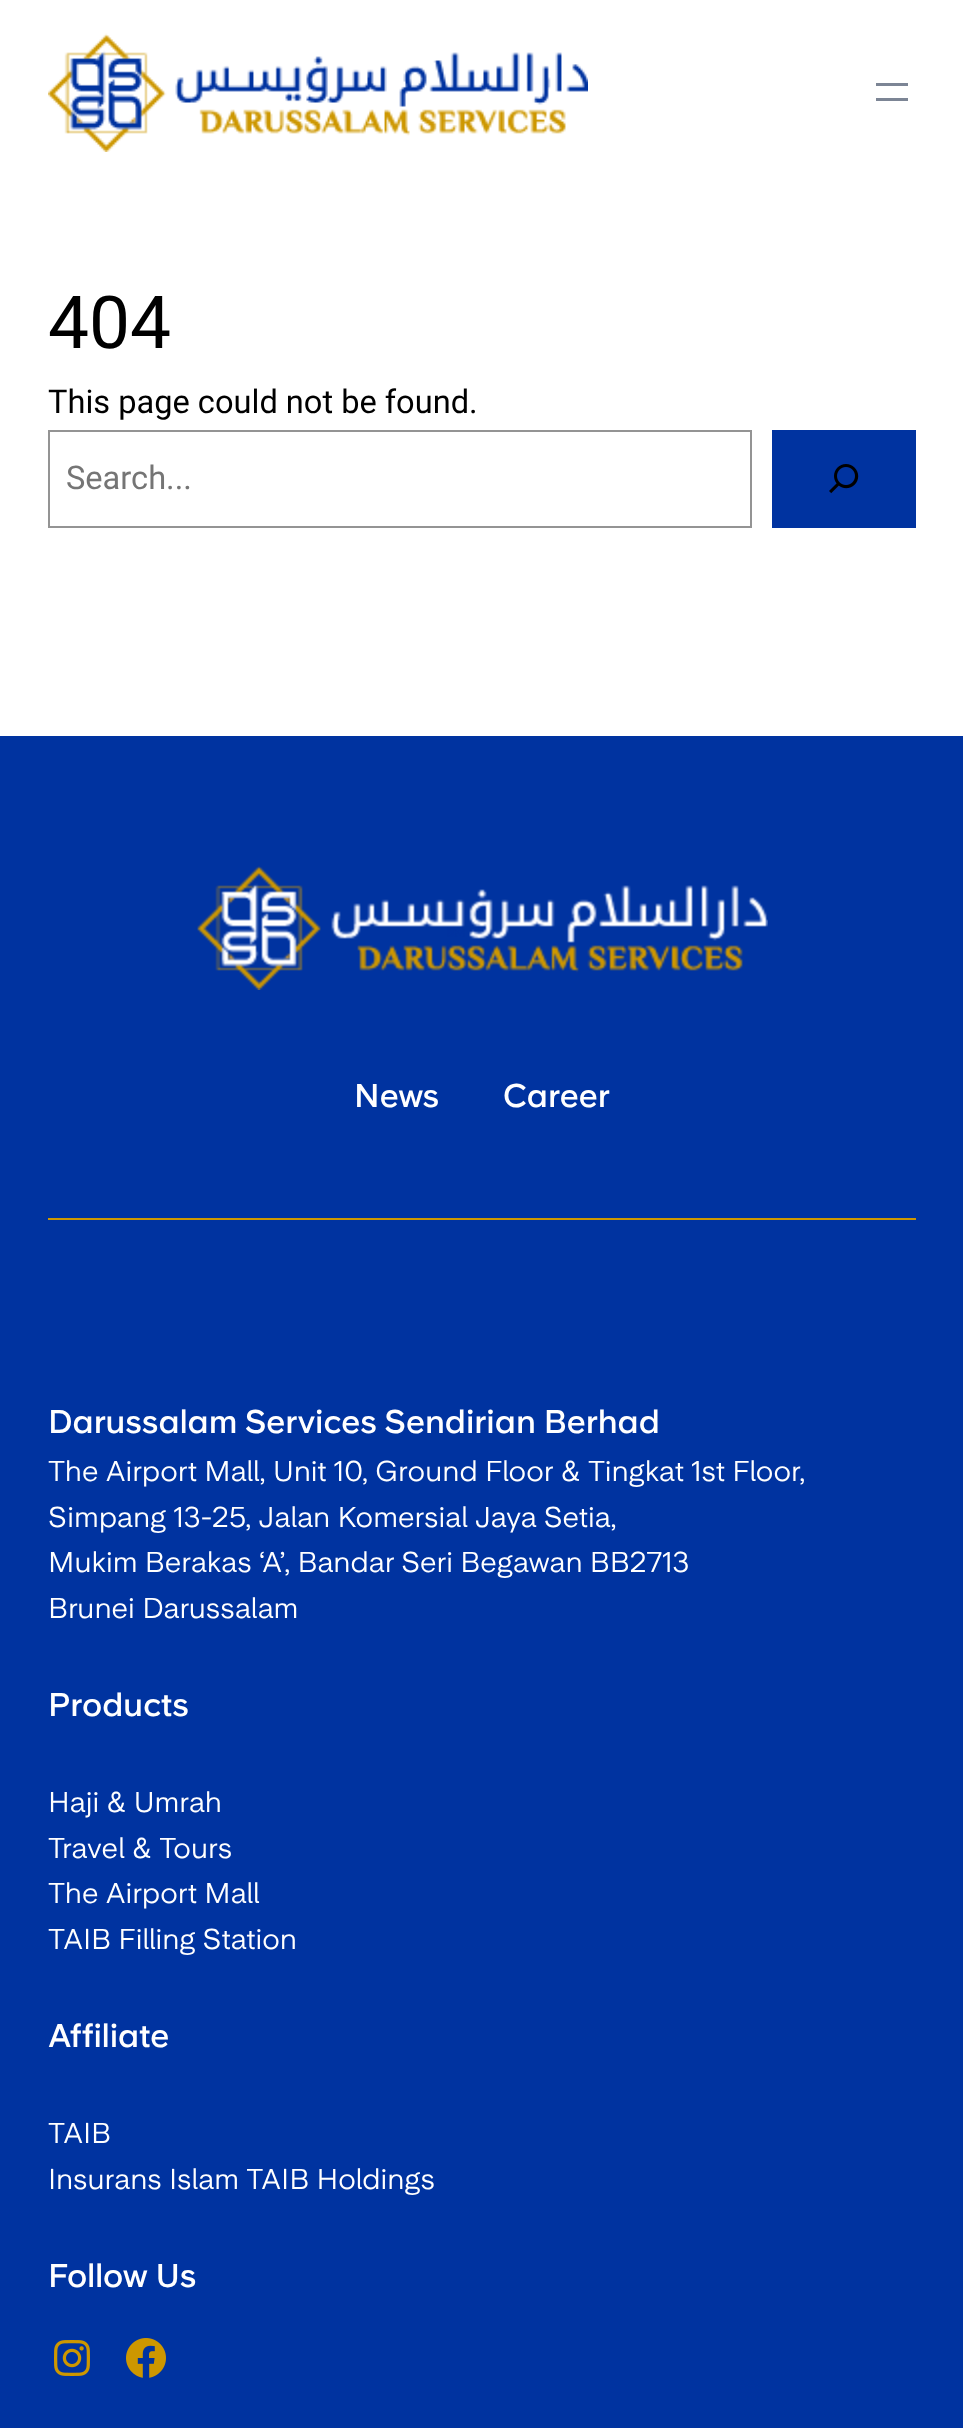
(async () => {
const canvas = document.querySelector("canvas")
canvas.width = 963
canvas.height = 2428
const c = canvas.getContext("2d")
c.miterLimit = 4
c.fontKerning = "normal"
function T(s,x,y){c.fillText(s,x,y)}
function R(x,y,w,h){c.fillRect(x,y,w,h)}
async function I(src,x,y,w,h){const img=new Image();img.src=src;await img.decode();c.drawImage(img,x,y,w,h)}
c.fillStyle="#fff"
R(0,0,963,2428)
await I("1.png",48,33,540,119)
c.fillStyle="#7c8595"
R(876,83,32,3)
R(876,98,32,3)
c.font="73px Roboto"
c.fillStyle="#000"
T("404",48,348)
c.font="32.6px Roboto"
T("This page could not be found.",48,413)
c.strokeStyle="#949494"
c.lineWidth=2
c.strokeRect(49,431,702,96)
c.fillStyle="#757575"
T("Search...",66,489)
c.fillStyle="#0033a0"
R(772,430,144,98)
await I("2.png",829,464,30,30)
R(0,736,963,1692)
c.fillStyle="#cd9700"
R(48,1218,868,2)
await I("3.png",197,866,571,124)
c.font="bold 32.6px 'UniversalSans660'"
c.fillStyle="#fff"
T("News",354,1107)
T("Career",503,1107)
T("Darussalam Services Sendirian Berhad",48,1433)
c.font="28.6px 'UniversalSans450'"
T("The Airport Mall, Unit 10, Ground Floor & Tingkat 1st Floor,",48,1481)
T("Simpang 13-25, Jalan Komersial Jaya Setia,",48,1527)
T("Mukim Berakas ‘A’, Bandar Seri Begawan BB2713",48,1572)
T("Brunei Darussalam",48,1618)
c.font="bold 32.6px 'UniversalSans660'"
T("Products",48,1716)
c.font="28.6px 'UniversalSans450'"
T("Haji & Umrah",48,1812)
T("Travel & Tours",48,1858)
T("The Airport Mall",48,1903)
T("TAIB Filling Station",48,1949)
c.font="bold 32.6px 'UniversalSans660'"
T("Affiliate",48,2047)
c.font="28.6px 'UniversalSans450'"
T("TAIB",48,2143)
T("Insurans Islam TAIB Holdings",48,2189)
c.font="bold 32.6px 'UniversalSans660'"
T("Follow Us",48,2287)
await I("4.png",54,2340,36,36)
await I("5.png",126,2338,40,40)
})()
